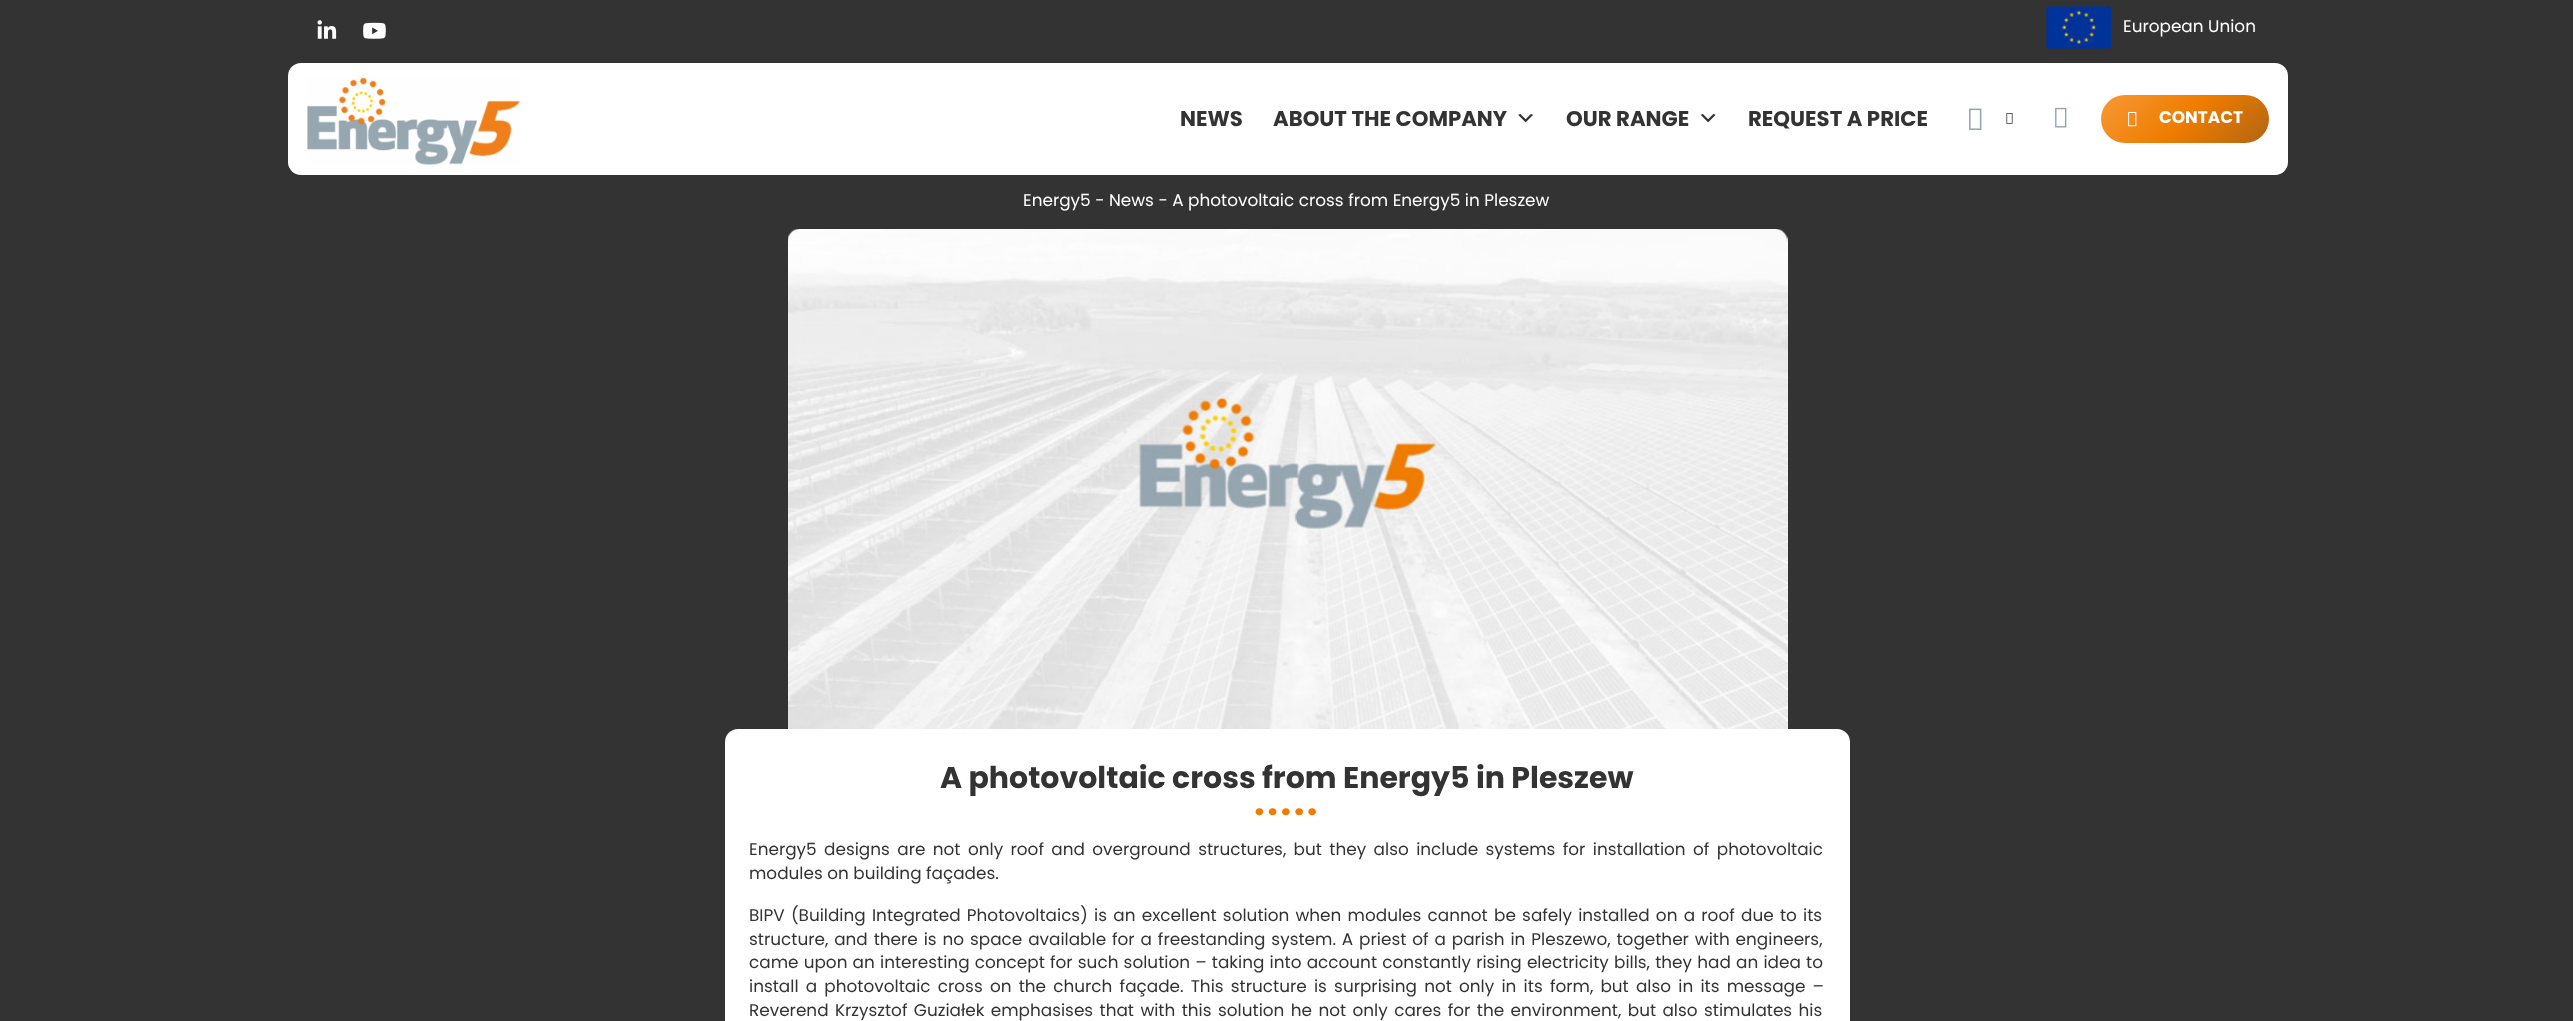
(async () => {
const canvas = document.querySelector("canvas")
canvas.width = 2573
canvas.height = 1021
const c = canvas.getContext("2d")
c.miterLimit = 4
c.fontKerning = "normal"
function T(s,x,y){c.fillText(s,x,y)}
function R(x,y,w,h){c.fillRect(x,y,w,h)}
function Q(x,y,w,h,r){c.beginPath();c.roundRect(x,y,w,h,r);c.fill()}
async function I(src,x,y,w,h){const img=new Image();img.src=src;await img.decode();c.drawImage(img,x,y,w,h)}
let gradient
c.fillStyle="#333"
R(0,0,2573,1021)
await I("1.png",317,20,20,19)
await I("2.png",363,22,23,17)
await I("3.png",2046,6,66,43)
c.font="16.88px Poppins"
c.fillStyle="#fff"
T("European Union",2123,32)
Q(288,63,2000,112,13)
await I("4.png",307,77,214,88)
c.font="bold 21.25px Poppins"
c.fillStyle="#333"
T("NEWS",1180,126)
T("ABOUT THE COMPANY",1273,126)
await I("5.png",1518,114,15,9)
T("OUR RANGE",1566,126)
await I("6.png",1700,114,16,9)
T("REQUEST A PRICE",1748,126)
await I("7.png",1969,108,13,22)
await I("8.png",2006,113,7,11)
await I("9.png",2055,107,12,21)
gradient = c.createLinearGradient(2131,65,2239,173)
gradient.addColorStop(0,"#f79935")
gradient.addColorStop(.5,"#ef7c00")
gradient.addColorStop(1,"#b16513")
c.fillStyle = gradient
Q(2101,95,168,48,24)
await I("10.png",2128,111,9,16)
c.font="bold 16.88px Poppins"
c.fillStyle="#fff"
T("CONTACT",2159,123)
c.font="16.88px Poppins"
T("Energy5 - News - A photovoltaic cross from Energy5 in Pleszew",1023,206)
await I("11.png",788,229,1000,500)
Q(725,729,1125,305,13)
c.font="bold 30px Poppins"
c.fillStyle="#333"
T("A photovoltaic cross from Energy5 in Pleszew",940,788)
c.letterSpacing="2.5px"
c.font="bold 38px Poppins"
c.fillStyle="#ef7c00"
T(".....",1254,815)
c.letterSpacing="0px"
c.wordSpacing="2.9px"
c.font="16.88px Poppins"
c.fillStyle="#333"
T("Energy5 designs are not only roof and overground structures, but they also include systems for installation of photovoltaic",749,855)
c.wordSpacing="0px"
T("modules on building façades.",749,879)
c.wordSpacing="1.75px"
T("BIPV (Building Integrated Photovoltaics) is an excellent solution when modules cannot be safely installed on a roof due to its",749,921)
c.wordSpacing="1.4px"
T("structure, and there is no space available for a freestanding system. A priest of a parish in Pleszewo, together with engineers,",749,945)
c.wordSpacing="0.7px"
T("came upon an interesting concept for such solution – taking into account constantly rising electricity bills, they had an idea to",749,968)
c.wordSpacing="2.7px"
T("install a photovoltaic cross on the church façade. This structure is surprising not only in its form, but also in its message –",749,992)
c.wordSpacing="1.9px"
T("Reverend Krzysztof Guziałek emphasises that with this solution he not only cares for the environment, but also stimulates his",749,1016)
})()
